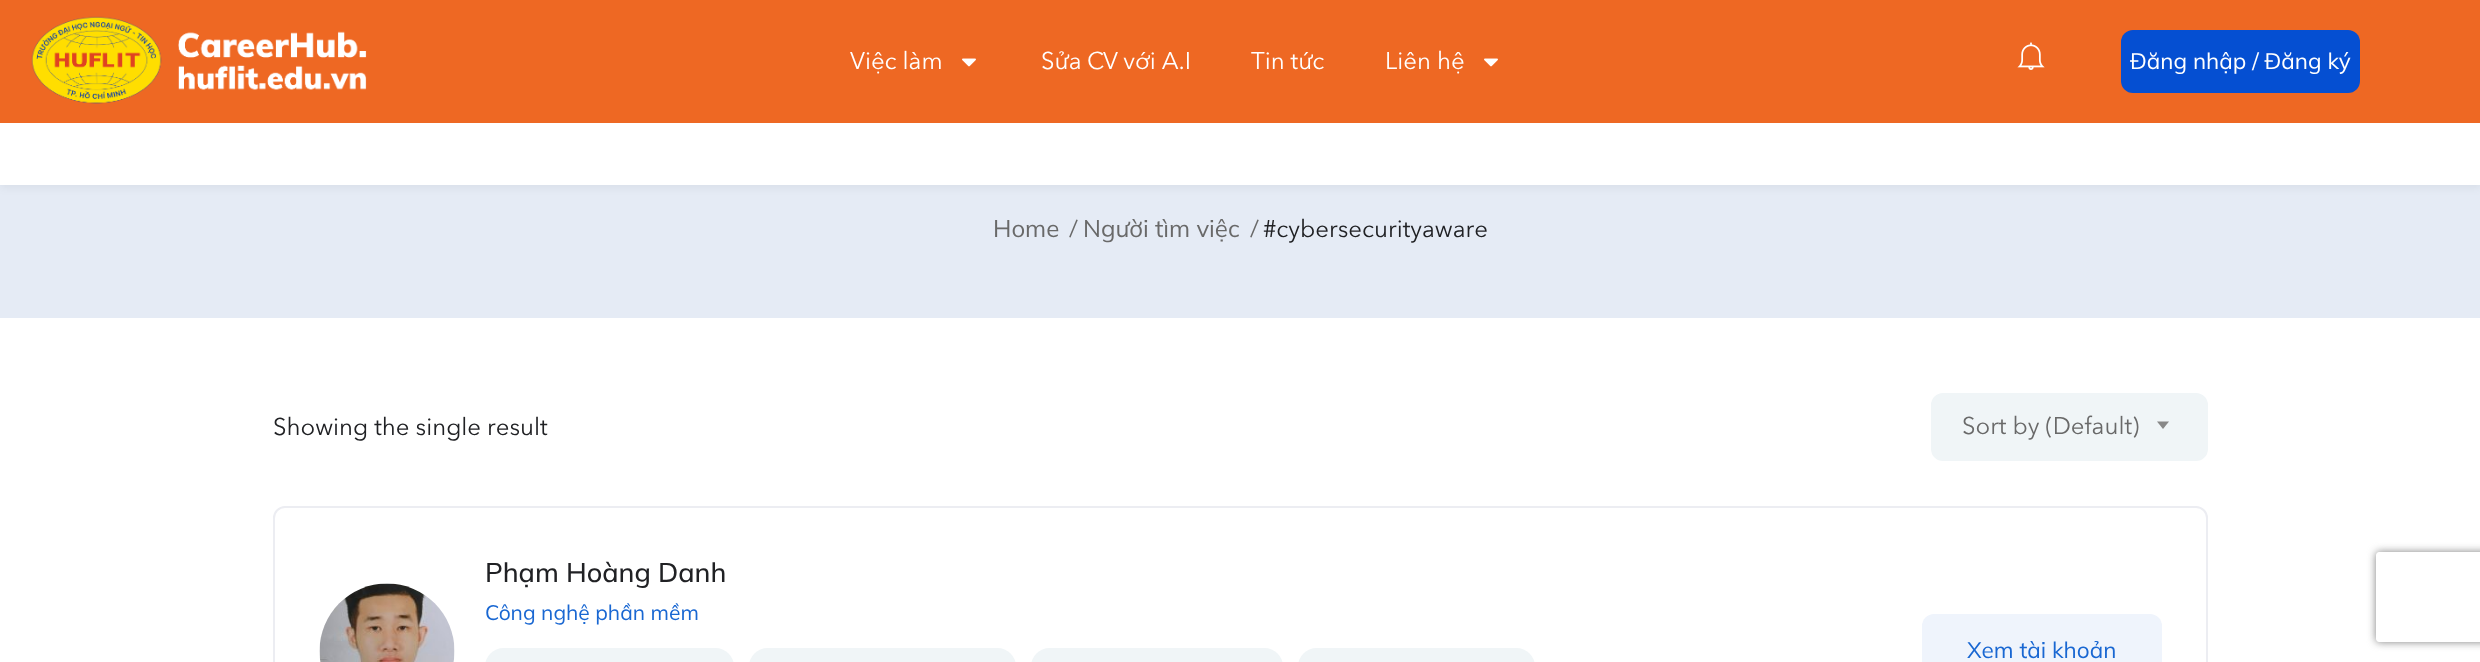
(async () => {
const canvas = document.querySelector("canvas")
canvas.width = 2480
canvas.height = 662
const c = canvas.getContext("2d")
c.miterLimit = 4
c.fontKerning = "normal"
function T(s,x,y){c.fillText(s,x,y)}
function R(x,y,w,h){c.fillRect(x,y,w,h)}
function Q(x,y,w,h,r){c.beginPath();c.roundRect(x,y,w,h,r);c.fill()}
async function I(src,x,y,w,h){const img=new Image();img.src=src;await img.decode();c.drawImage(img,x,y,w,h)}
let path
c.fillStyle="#fff"
R(0,0,2480,662)
c.fillStyle="#e5ebf5"
R(0,185,2480,133)
c.fillStyle="#0000000d"
c.filter="blur(4.5px)"
c.beginPath()
c.rect(0,3,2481,185)
c.fill()
c.filter="none"
c.fillStyle="#fff"
R(0,123,2480,62)
c.fillStyle="#ee6823"
R(0,0,2480,123)
await I("1.png",31,16,336,88)
c.font="24px Avenir Next"
c.fillStyle="#fff"
T("Việc làm",850,69)
await I("2.png",962,58,14,9)
T("Sửa CV với A.I",1041,69)
T("Tin tức",1251,69)
T("Liên hệ",1385,69)
await I("2.png",1484,58,14,9)
await I("3.png",2017,42,28,28)
c.fillStyle="#054fd2"
Q(2121,30,239,63,12)
c.font="22.5px Mulish"
c.fillStyle="#fff"
T("Đăng nhập / Đăng ký",2130,69)
c.font="24px Mulish"
c.fillStyle="#696969"
T("Home",993,237)
c.font="24px Avenir Next"
T("/",1069,237)
c.font="24px Mulish"
T("Người tìm việc",1083,237)
c.font="24px Avenir Next"
T("/",1250,237)
c.fillStyle="#202124"
T("#cybersecurityaware",1263,237)
T("Showing the single result",273,435)
c.fillStyle="#f0f5f7"
c.beginPath()
c.roundRect(1932,394,275,66,11)
c.fill()
c.strokeStyle="#f0f5f7"
c.lineWidth=2
c.stroke()
c.fillStyle="#696969"
T("Sort by (Default)",1962,434)
c.fillStyle="#888"
path = new Path2D("M2157 421.5h12l-6 7.5z")
c.fill(path)
c.beginPath()
c.roundRect(274,507,1933,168,11)
c.strokeStyle="#ecedf2"
c.stroke()
await I("4.png",319,583,136,79)
c.font="500 27px Mulish"
c.fillStyle="#202124"
T("Phạm Hoàng Danh",485,582)
c.font="21px Mulish"
c.fillStyle="#1967d2"
T("Công nghệ phần mềm",485,620)
c.fillStyle="#f0f5f7"
Q(485,648,249,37,22.5)
Q(749,648,267,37,22.5)
Q(1031,648,252,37,22.5)
Q(1298,648,237,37,22.5)
c.fillStyle="#eff4fc"
Q(1922,614,240,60,12)
c.font="22.5px Mulish"
c.fillStyle="#1967d2"
T("Xem tài khoản",1967,658)
c.save()
path = new Path2D("M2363 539h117v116h-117zm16 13h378c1.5 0 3 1.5 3 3v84c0 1.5-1.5 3-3 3h-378c-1.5 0-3-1.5-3-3v-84c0-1.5 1.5-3 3-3z")
c.clip(path,"evenodd")
c.fillStyle="#808080"
c.filter="blur(4px)"
c.beginPath()
c.roundRect(2376,552,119,90,3)
c.fill()
c.filter="none"
c.restore()
})()
